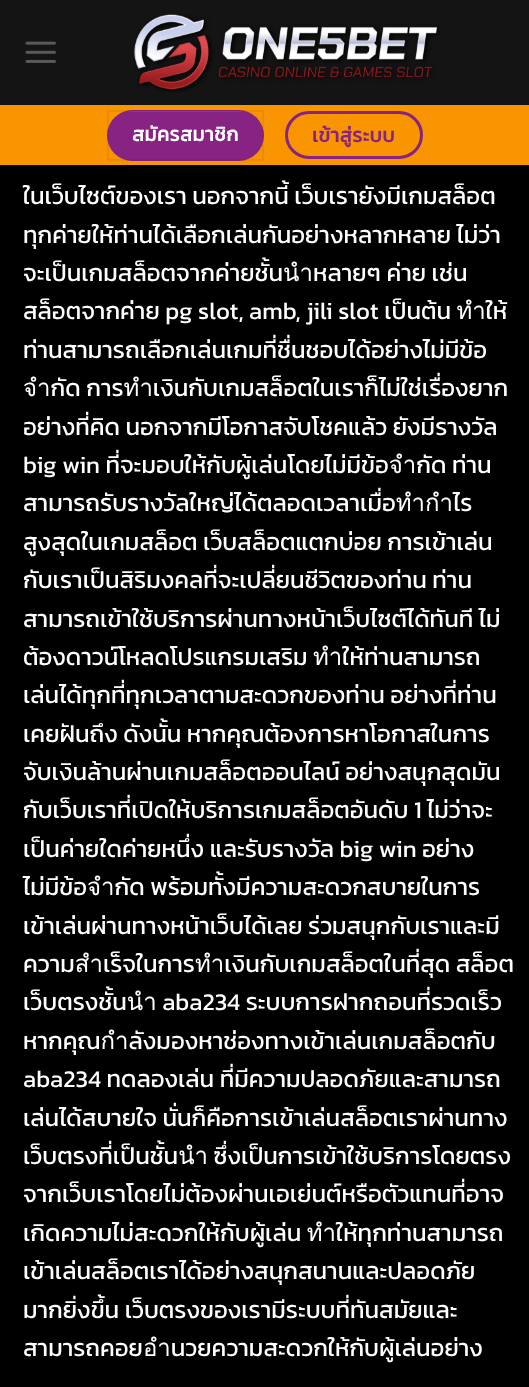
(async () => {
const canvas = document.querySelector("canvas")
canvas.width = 529
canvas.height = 1387
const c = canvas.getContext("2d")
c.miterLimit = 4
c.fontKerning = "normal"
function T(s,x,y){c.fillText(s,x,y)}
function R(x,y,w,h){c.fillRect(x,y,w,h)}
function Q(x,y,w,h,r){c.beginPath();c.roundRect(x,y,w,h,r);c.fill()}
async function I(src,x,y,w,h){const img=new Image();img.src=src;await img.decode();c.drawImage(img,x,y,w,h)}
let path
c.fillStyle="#000"
R(0,0,529,1387)
c.fillStyle="#141414"
R(0,0,529,105)
await I("1.png",25,41,31,22)
await I("2.png",134,14,306,78)
c.fillStyle="#f99500"
R(0,105,529,60)
c.fillStyle="#872483"
Q(107,110,157,51,25.5)
c.strokeStyle="#0000000d"
c.lineWidth=2
c.strokeRect(108,111,155,49)
c.fillStyle="#8d388a"
path = new Path2D("M132 111l-7 1h121l-7-1z")
c.fill(path)
c.letterSpacing="0.5px"
c.font="bold 19.75px Kanit"
c.fillStyle="#fff"
T("สมัครสมาชิก",132,141)
c.beginPath()
c.roundRect(286.5,112.5,135,45,22.5)
c.strokeStyle="#872483"
c.lineWidth=3
c.stroke()
c.fillStyle="#872483"
T("เข้าสู่ระบบ",312,142)
c.letterSpacing="0px"
c.font="24px Kanit"
c.fillStyle="#fff"
T("ในเว็บไซต์ของเรา นอกจากนี้ เว็บเรายังมีเกมสล็อต",23,204)
T("ทุกค่ายให้ท่านได้เลือกเล่นกันอย่างหลากหลาย ไม่ว่า",23,243)
T("จะเป็นเกมสล็อตจากค่ายชั้นนำหลายๆ ค่าย เช่น",23,281)
T("สล็อตจากค่าย pg slot, amb, jili slot เป็นต้น ทำให้",23,319)
T("ท่านสามารถเลือกเล่นเกมที่ชื่นชอบได้อย่างไม่มีข้อ",23,358)
T("จำกัด การทำเงินกับเกมสล็อตในเราก็ไม่ใช่เรื่องยาก",23,396)
T("อย่างที่คิด นอกจากมีโอกาสจับโชคแล้ว ยังมีรางวัล",23,435)
T("big win ที่จะมอบให้กับผู้เล่นโดยไม่มีข้อจำกัด ท่าน",23,473)
T("สามารถรับรางวัลใหญ่ได้ตลอดเวลาเมื่อทำกำไร",23,511)
T("สูงสุดในเกมสล็อต เว็บสล็อตแตกบ่อย การเข้าเล่น",23,550)
T("กับเราเป็นสิริมงคลที่จะเปลี่ยนชีวิตของท่าน ท่าน",23,588)
T("สามารถเข้าใช้บริการผ่านทางหน้าเว็บไซต์ได้ทันที ไม่",23,627)
T("ต้องดาวน์โหลดโปรแกรมเสริม ทำให้ท่านสามารถ",23,665)
T("เล่นได้ทุกที่ทุกเวลาตามสะดวกของท่าน อย่างที่ท่าน",23,703)
T("เคยฝันถึง ดังนั้น หากคุณต้องการหาโอกาสในการ",23,742)
T("จับเงินล้านผ่านเกมสล็อตออนไลน์ อย่างสนุกสุดมัน",23,780)
T("กับเว็บเราที่เปิดให้บริการเกมสล็อตอันดับ 1 ไม่ว่าจะ",23,818)
T("เป็นค่ายใดค่ายหนึ่ง และรับรางวัล big win อย่าง",23,857)
T("ไม่มีข้อจำกัด พร้อมทั้งมีความสะดวกสบายในการ",23,895)
T("เข้าเล่นผ่านทางหน้าเว็บได้เลย ร่วมสนุกกับเราและมี",23,934)
T("ความสำเร็จในการทำเงินกับเกมสล็อตในที่สุด สล็อต",23,972)
T("เว็บตรงชั้นนำ aba234 ระบบการฝากถอนที่รวดเร็ว",23,1010)
T("หากคุณกำลังมองหาช่องทางเข้าเล่นเกมสล็อตกับ",23,1049)
T("aba234 ทดลองเล่น ที่มีความปลอดภัยและสามารถ",23,1087)
T("เล่นได้สบายใจ นั่นก็คือการเข้าเล่นสล็อตเราผ่านทาง",23,1126)
T("เว็บตรงที่เป็นชั้นนำ ซึ่งเป็นการเข้าใช้บริการโดยตรง",23,1164)
T("จากเว็บเราโดยไม่ต้องผ่านเอเย่นต์หรือตัวแทนที่อาจ",23,1202)
T("เกิดความไม่สะดวกให้กับผู้เล่น ทำให้ทุกท่านสามารถ",23,1241)
T("เข้าเล่นสล็อตเราได้อย่างสนุกสนานและปลอดภัย",23,1279)
T("มากยิ่งขึ้น เว็บตรงของเรามีระบบที่ทันสมัยและ",23,1318)
T("สามารถคอยอำนวยความสะดวกให้กับผู้เล่นอย่าง",23,1356)
})()
